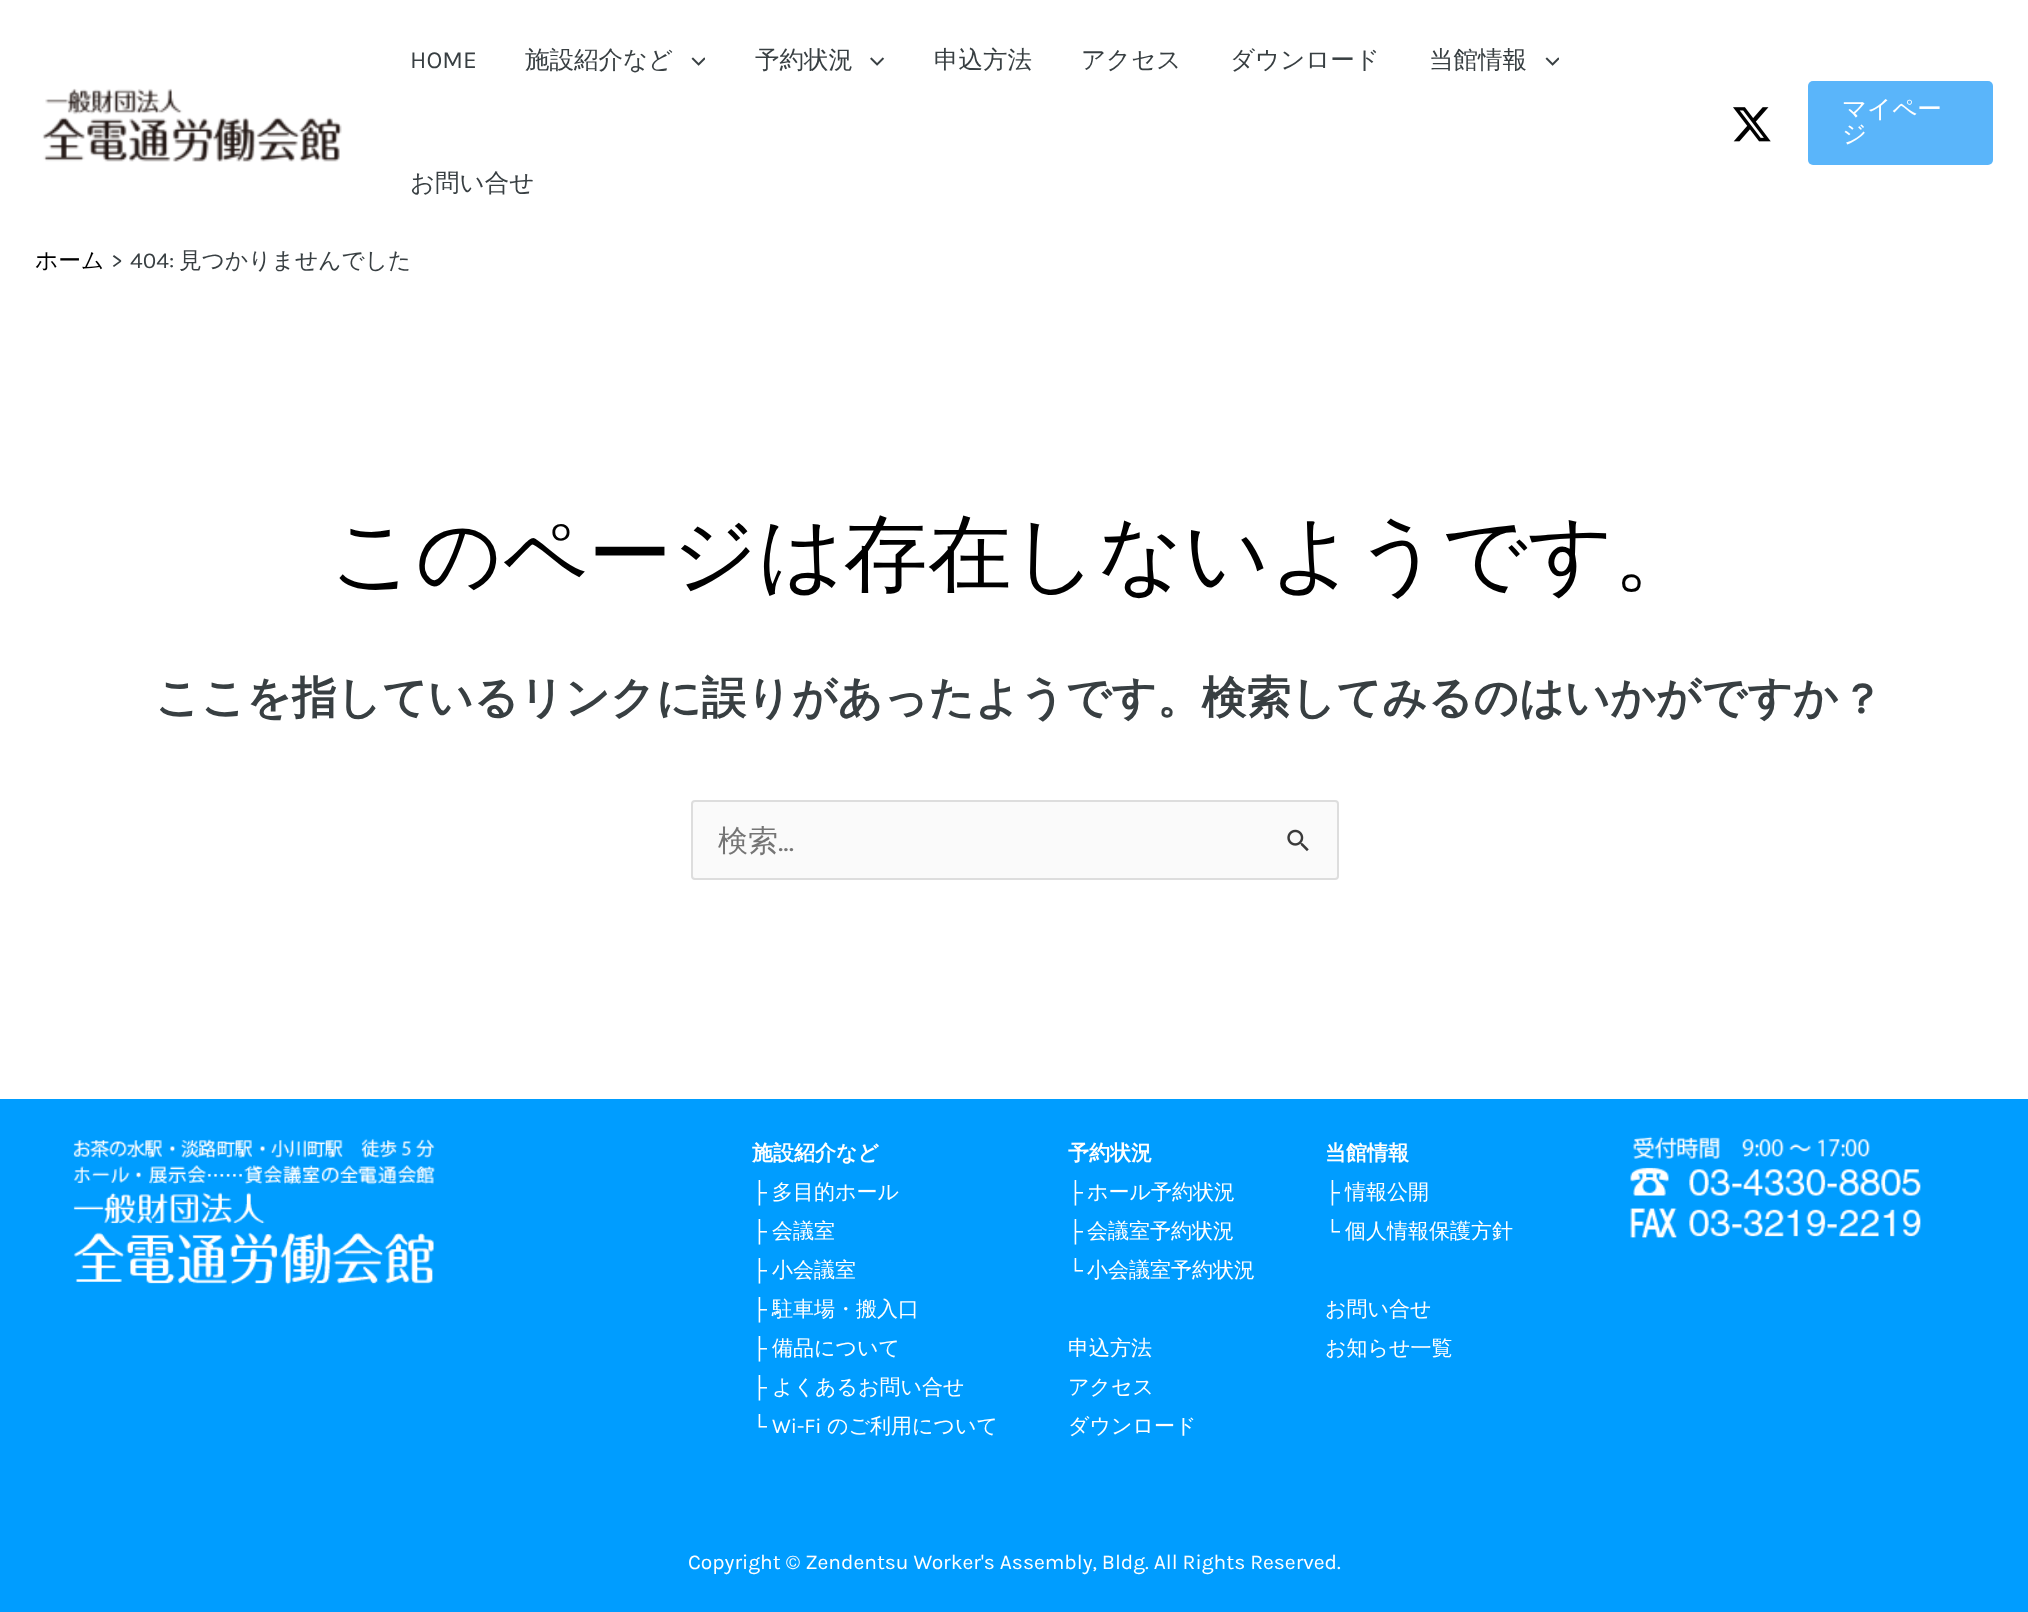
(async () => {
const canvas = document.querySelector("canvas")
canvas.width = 2028
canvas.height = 1612
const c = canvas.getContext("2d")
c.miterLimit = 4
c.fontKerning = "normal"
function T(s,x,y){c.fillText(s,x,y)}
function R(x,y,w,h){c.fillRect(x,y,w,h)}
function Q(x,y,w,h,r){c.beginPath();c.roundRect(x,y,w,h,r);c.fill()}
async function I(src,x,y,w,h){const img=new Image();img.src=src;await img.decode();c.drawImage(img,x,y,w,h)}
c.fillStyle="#fff"
R(0,0,2028,1612)
await I("1.png",42,88,300,74)
c.font="24.5px Karla"
c.fillStyle="#383f42"
T("HOME",410,68)
c.font="500 24.5px WenQuanYi Zen Hei"
T("施設紹介など",525,68)
await I("2.png",691,57,14,9)
T("予約状況",755,68)
await I("3.png",870,57,15,9)
T("申込方法",934,68)
T("アクセス",1081,68)
T("ダウンロード",1230,68)
T("当館情報",1429,68)
await I("2.png",1545,57,14,9)
T("お問い合せ",410,191)
await I("4.png",1733,107,38,35)
c.fillStyle="#5ab5fa"
Q(1808,81,185,84,5)
c.fillStyle="#fff"
T("マイペー",1842,117)
T("ジ",1842,142)
c.font="500 22.75px WenQuanYi Zen Hei"
c.fillStyle="#000"
T("ホーム",35,268)
c.font="22.75px Karla"
c.fillStyle="#383f42"
T(">",111,268)
T("404:",130,268)
c.font="500 22.75px WenQuanYi Zen Hei"
T("見つかりませんでした",179,268)
c.font="500 84px WenQuanYi Zen Hei"
c.fillStyle="#000"
T("このページは存在しないようです。",330,583)
c.font="bold 44.6px WenQuanYi Zen Hei"
c.fillStyle="#383f42"
T("ここを指しているリンクに誤りがあったようです。検索してみるのはいかがですか",155,713)
c.font="bold 44.6px Karla"
T("?",1851,713)
c.fillStyle="#fafafa"
c.beginPath()
c.roundRect(692,801,646,78,3)
c.fill()
c.strokeStyle="#ddd"
c.lineWidth=2
c.stroke()
c.font="500 30px WenQuanYi Zen Hei"
c.fillStyle="#757575"
T("検索",718,851)
c.font="30px Karla"
T("...",778,851)
await I("5.png",1287,829,22,23)
c.fillStyle="#009dff"
R(0,1099,2028,513)
await I("6.png",73,1138,362,147)
c.font="bold 21px WenQuanYi Zen Hei"
c.fillStyle="#fff"
T("施設紹介など",752,1160)
c.font="21px Liberation Sans"
T("├",752,1199)
c.font="500 21px WenQuanYi Zen Hei"
T("多目的ホール",772,1199)
c.font="21px Liberation Sans"
T("├",752,1238)
c.font="500 21px WenQuanYi Zen Hei"
T("会議室",772,1238)
c.font="21px Liberation Sans"
T("├",752,1277)
c.font="500 21px WenQuanYi Zen Hei"
T("小会議室",772,1277)
c.font="21px Liberation Sans"
T("├",752,1316)
c.font="500 21px WenQuanYi Zen Hei"
T("駐車場・搬入口",772,1316)
c.font="21px Liberation Sans"
T("├",752,1355)
c.font="500 21px WenQuanYi Zen Hei"
T("備品について",772,1355)
c.font="21px Liberation Sans"
T("├",752,1394)
c.font="500 21px WenQuanYi Zen Hei"
T("よくあるお問い合せ",772,1394)
c.font="21px Liberation Sans"
T("└",752,1433)
c.font="21px Karla"
T("Wi-Fi",772,1433)
c.font="500 21px WenQuanYi Zen Hei"
T("のご利用について",827,1433)
c.font="bold 21px WenQuanYi Zen Hei"
T("予約状況",1068,1160)
c.font="21px Liberation Sans"
T("├",1068,1199)
c.font="500 21px WenQuanYi Zen Hei"
T("ホール予約状況",1087,1199)
c.font="21px Liberation Sans"
T("├",1068,1238)
c.font="500 21px WenQuanYi Zen Hei"
T("会議室予約状況",1087,1238)
c.font="21px Liberation Sans"
T("└",1068,1277)
c.font="500 21px WenQuanYi Zen Hei"
T("小会議室予約状況",1087,1277)
T("申込方法",1068,1355)
T("アクセス",1068,1394)
T("ダウンロード",1068,1433)
c.font="bold 21px WenQuanYi Zen Hei"
T("当館情報",1325,1160)
c.font="21px Liberation Sans"
T("├",1325,1199)
c.font="500 21px WenQuanYi Zen Hei"
T("情報公開",1345,1199)
c.font="21px Liberation Sans"
T("└",1325,1238)
c.font="500 21px WenQuanYi Zen Hei"
T("個人情報保護方針",1345,1238)
T("お問い合せ",1325,1316)
T("お知らせ一覧",1325,1355)
await I("7.png",1630,1136,291,102)
c.font="21px Karla"
T("Copyright © Zendentsu Worker's Assembly, Bldg. All Rights Reserved.",688,1569)
})()
